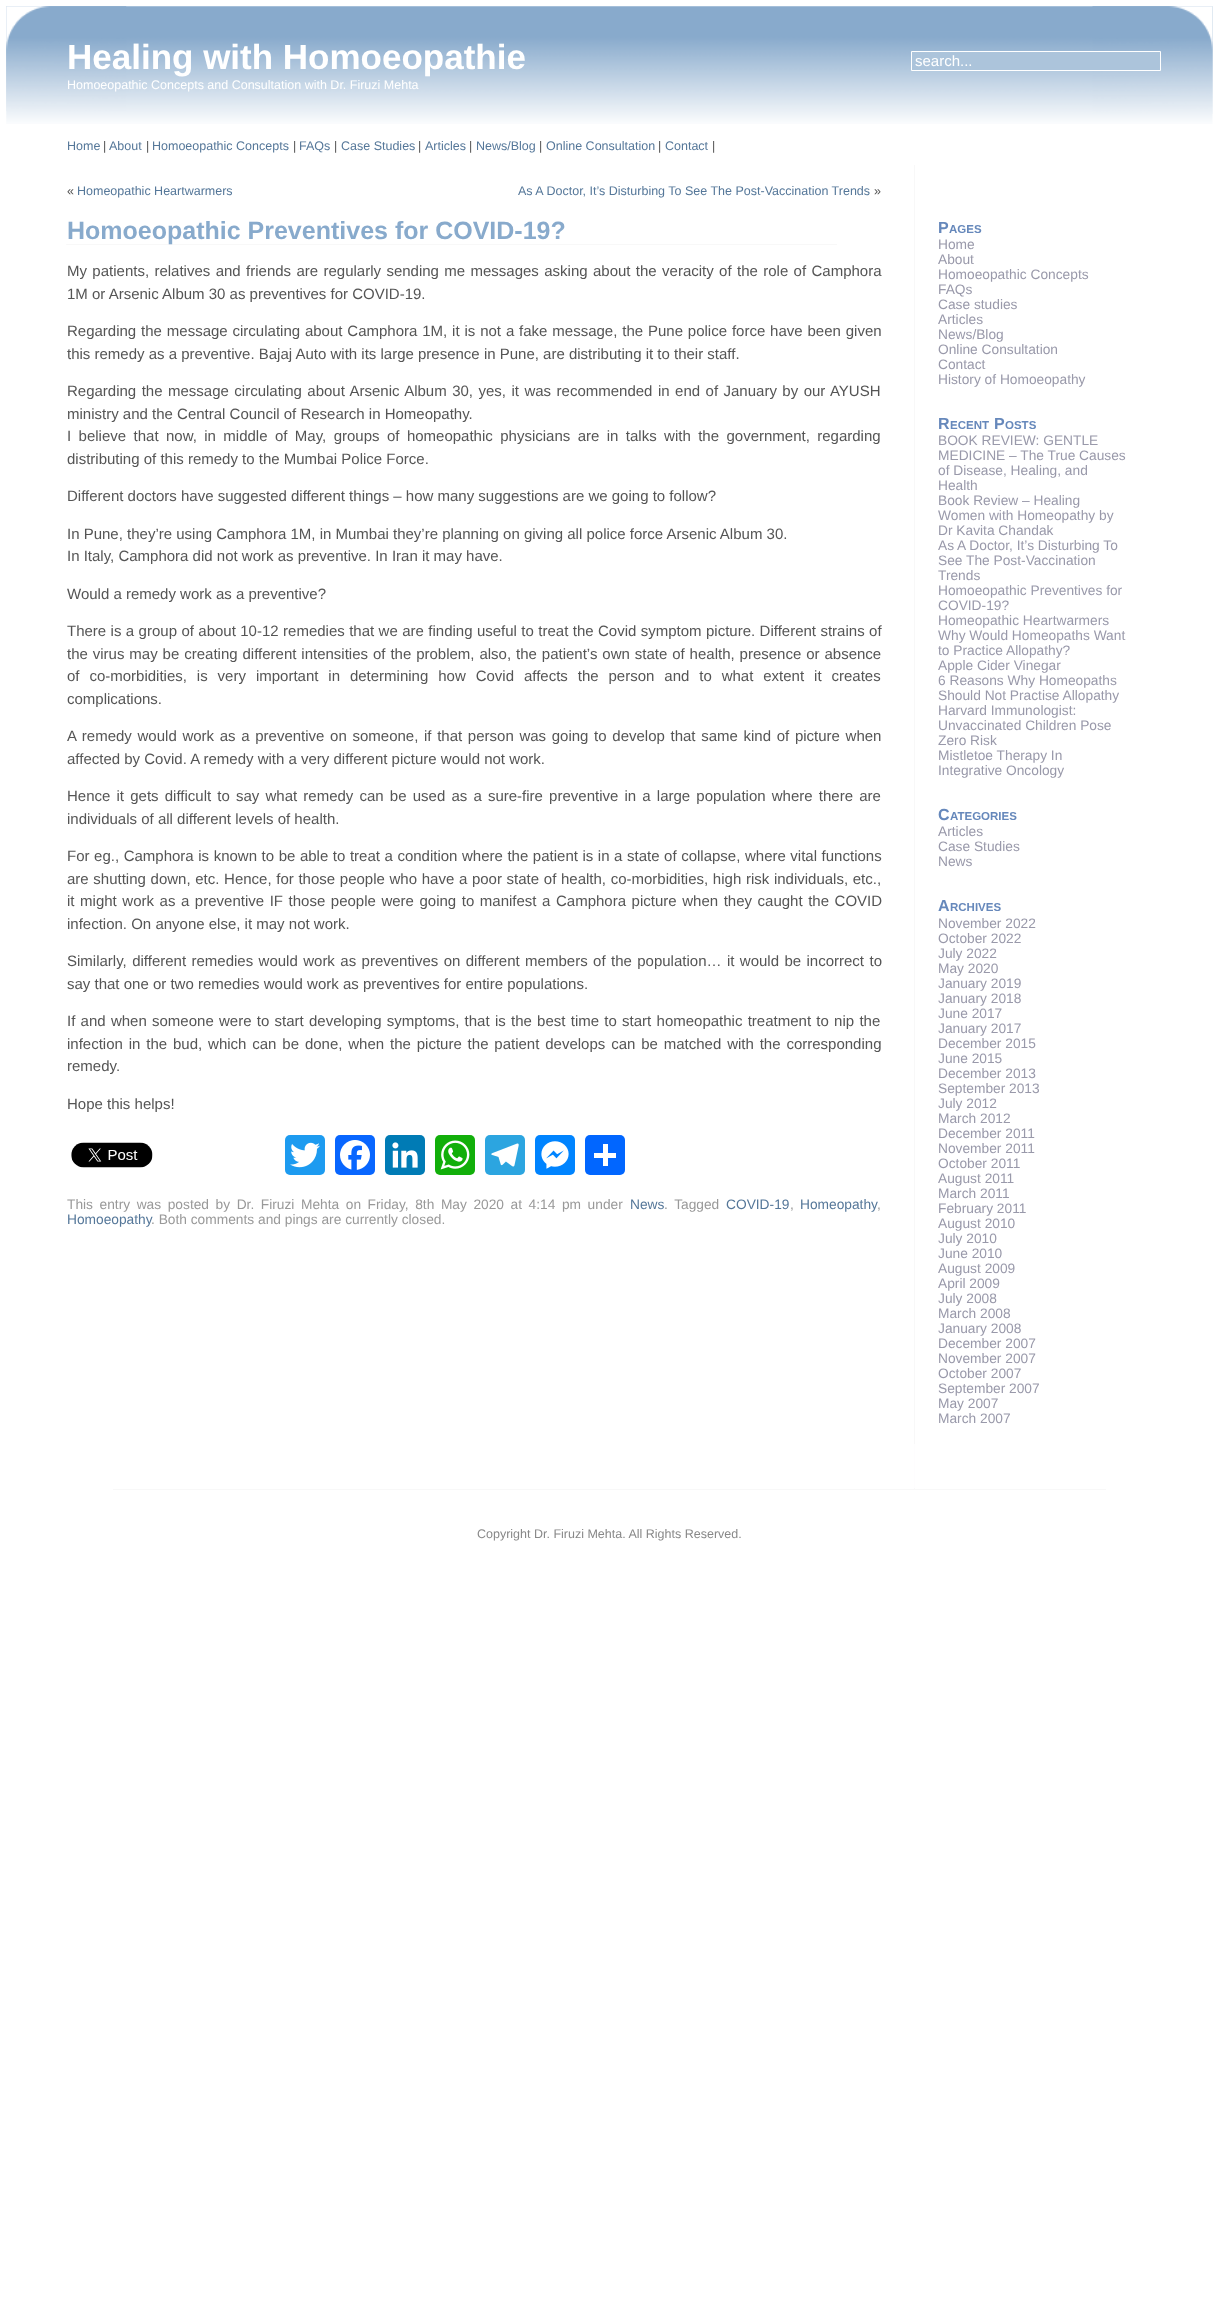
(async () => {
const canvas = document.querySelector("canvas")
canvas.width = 1218
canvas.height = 2299
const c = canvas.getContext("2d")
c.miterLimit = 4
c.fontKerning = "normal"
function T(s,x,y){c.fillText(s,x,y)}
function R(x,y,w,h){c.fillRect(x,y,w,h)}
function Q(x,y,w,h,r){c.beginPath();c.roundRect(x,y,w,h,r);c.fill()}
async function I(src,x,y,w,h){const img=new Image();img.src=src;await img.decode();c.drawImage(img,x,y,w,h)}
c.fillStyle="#fff"
R(0,0,1218,2299)
await I("1.png",6,6,1207,118)
await I("2.png",6,6,121,105)
await I("3.png",1092,6,121,108)
c.font="bold 35px Liberation Sans"
T("Healing with Homoeopathie",67,69)
c.font="12.5px Liberation Sans"
T("Homoeopathic Concepts and Consultation with Dr. Firuzi Mehta",67,89)
c.fillStyle="#acc4db"
c.beginPath()
c.rect(911.5,51.5,249,19)
c.fill()
c.strokeStyle="#fff"
c.stroke()
c.font="15px Liberation Sans"
c.fillStyle="#fff"
T("search...",915,66)
c.font="12.5px Liberation Sans"
c.fillStyle="#579"
T("Home",67,150)
c.fillStyle="#555"
T("|",103,150)
c.fillStyle="#579"
T("About",109,150)
c.fillStyle="#555"
T("|",146,150)
c.fillStyle="#579"
T("Homoeopathic Concepts",152,150)
c.fillStyle="#555"
T("|",293,150)
c.fillStyle="#579"
T("FAQs",299,150)
c.fillStyle="#555"
T("|",334,150)
c.fillStyle="#579"
T("Case Studies",341,150)
c.fillStyle="#555"
T("|",418,150)
c.fillStyle="#579"
T("Articles",425,150)
c.fillStyle="#555"
T("|",469,150)
c.fillStyle="#579"
T("News/Blog",476,150)
c.fillStyle="#555"
T("|",539,150)
c.fillStyle="#579"
T("Online Consultation",546,150)
c.fillStyle="#555"
T("|",658,150)
c.fillStyle="#579"
T("Contact",665,150)
c.fillStyle="#555"
T("|",712,150)
T("«",67,195)
c.fillStyle="#579"
T("Homeopathic Heartwarmers",77,195)
T("As A Doctor, It’s Disturbing To See The Post-Vaccination Trends",518,195)
c.fillStyle="#555"
T("»",874,195)
await I("4.png",66,244,771,1)
c.font="bold 25px Liberation Sans"
c.fillStyle="#8ac"
T("Homoeopathic Preventives for COVID-19?",67,239)
c.wordSpacing="1.2px"
c.font="15px Liberation Sans"
c.fillStyle="#555"
T("My patients, relatives and friends are regularly sending me messages asking about the veracity of the role of Camphora",67,276)
c.wordSpacing="0px"
T("1M or Arsenic Album 30 as preventives for COVID-19.",67,299)
c.wordSpacing="0.7px"
T("Regarding the message circulating about Camphora 1M, it is not a fake message, the Pune police force have been given",67,336)
c.wordSpacing="0px"
T("this remedy as a preventive. Bajaj Auto with its large presence in Pune, are distributing it to their staff.",67,359)
c.wordSpacing="1.3px"
T("Regarding the message circulating about Arsenic Album 30, yes, it was recommended in end of January by our AYUSH",67,396)
c.wordSpacing="0px"
T("ministry and the Central Council of Research in Homeopathy.",67,419)
c.wordSpacing="3.25px"
T("I believe that now, in middle of May, groups of homeopathic physicians are in talks with the government, regarding",67,441)
c.wordSpacing="0px"
T("distributing of this remedy to the Mumbai Police Force.",67,464)
T("Different doctors have suggested different things – how many suggestions are we going to follow?",67,501)
T("In Pune, they’re using Camphora 1M, in Mumbai they’re planning on giving all police force Arsenic Album 30.",67,539)
T("In Italy, Camphora did not work as preventive. In Iran it may have.",67,561)
T("Would a remedy work as a preventive?",67,599)
c.wordSpacing="0.25px"
T("There is a group of about 10-12 remedies that we are finding useful to treat the Covid symptom picture. Different strains of",67,636)
c.wordSpacing="0.75px"
T("the virus may be creating different intensities of the problem, also, the patient’s own state of health, presence or absence",67,659)
c.wordSpacing="5.75px"
T("of co-morbidities, is very important in determining how Covid affects the person and to what extent it creates",67,681)
c.wordSpacing="0px"
T("complications.",67,704)
c.wordSpacing="1.5px"
T("A remedy would work as a preventive on someone, if that person was going to develop that same kind of picture when",67,741)
c.wordSpacing="0px"
T("affected by Covid. A remedy with a very different picture would not work.",67,764)
c.wordSpacing="2px"
T("Hence it gets difficult to say what remedy can be used as a sure-fire preventive in a large population where there are",67,801)
c.wordSpacing="0px"
T("individuals of all different levels of health.",67,824)
c.wordSpacing="0.4px"
T("For eg., Camphora is known to be able to treat a condition where the patient is in a state of collapse, where vital functions",67,861)
c.wordSpacing="0.5px"
T("are shutting down, etc. Hence, for those people who have a poor state of health, co-morbidities, high risk individuals, etc.,",67,884)
c.wordSpacing="1.4px"
T("it might work as a preventive IF those people were going to manifest a Camphora picture when they caught the COVID",67,906)
c.wordSpacing="0px"
T("infection. On anyone else, it may not work.",67,929)
c.wordSpacing="1.25px"
T("Similarly, different remedies would work as preventives on different members of the population… it would be incorrect to",67,966)
c.wordSpacing="0px"
T("say that one or two remedies would work as preventives for entire populations.",67,989)
c.wordSpacing="1.1px"
T("If and when someone were to start developing symptoms, that is the best time to start homeopathic treatment to nip the",67,1026)
c.wordSpacing="1.7px"
T("infection in the bud, which can be done, when the picture the patient develops can be matched with the corresponding",67,1049)
c.wordSpacing="0px"
T("remedy.",67,1071)
T("Hope this helps!",67,1109)
await I("5.png",71,1142,82,26)
c.fillStyle="#1d9bf0"
Q(285,1135,40,40,5)
await I("6.png",290,1142,30,26)
c.fillStyle="#0866ff"
Q(335,1135,40,40,5)
await I("7.png",340,1140,30,30)
c.fillStyle="#007bb5"
Q(385,1135,40,40,5)
await I("8.png",392,1142,26,26)
c.fillStyle="#12af0a"
Q(435,1135,40,40,5)
await I("9.png",440,1140,30,30)
c.fillStyle="#2ca5e0"
Q(485,1135,40,40,5)
await I("10.png",491,1143,28,24)
c.fillStyle="#0084ff"
Q(535,1135,40,40,5)
await I("11.png",541,1141,28,28)
c.fillStyle="#0166ff"
Q(585,1135,40,40,5)
c.fillStyle="#fff"
R(603,1144,5,22)
R(594,1153,22,5)
c.wordSpacing="2.75px"
c.font="13.75px Liberation Sans"
c.fillStyle="#999"
T("This entry was posted by Dr. Firuzi Mehta on Friday, 8th May 2020 at 4:14 pm under",67,1209)
c.wordSpacing="0px"
c.fillStyle="#579"
T("News",630,1209)
c.wordSpacing="2.75px"
c.fillStyle="#999"
T(". Tagged",664,1209)
c.wordSpacing="0px"
c.fillStyle="#579"
T("COVID-19",726,1209)
c.fillStyle="#999"
T(",",790,1209)
c.fillStyle="#579"
T("Homeopathy",800,1209)
c.fillStyle="#999"
T(",",877,1209)
c.fillStyle="#579"
T("Homoeopathy",67,1224)
c.fillStyle="#999"
T(". Both comments and pings are currently closed.",151,1224)
await I("12.png",914,165,1,1324)
c.fillStyle="#fefdfe"
R(914,1444,1,44)
c.font="bold 16px Liberation Sans"
c.fillStyle="#68b"
T("P",938,233)
c.font="bold 11.5px Liberation Sans"
T("AGES",949,233)
c.font="13.75px Liberation Sans"
c.fillStyle="#99a"
T("Home",938,249)
T("About",938,264)
T("Homoeopathic Concepts",938,279)
T("FAQs",938,294)
T("Case studies",938,309)
T("Articles",938,324)
T("News/Blog",938,339)
T("Online Consultation",938,354)
T("Contact",938,369)
T("History of Homoeopathy",938,384)
c.font="bold 16px Liberation Sans"
c.fillStyle="#68b"
T("R",938,429)
c.font="bold 11.5px Liberation Sans"
T("ECENT",950,429)
c.font="bold 16px Liberation Sans"
T("P",994,429)
c.font="bold 11.5px Liberation Sans"
T("OSTS",1005,429)
c.font="13.75px Liberation Sans"
c.fillStyle="#99a"
T("BOOK REVIEW: GENTLE",938,445)
T("MEDICINE – The True Causes",938,460)
T("of Disease, Healing, and",938,475)
T("Health",938,490)
T("Book Review – Healing",938,505)
T("Women with Homeopathy by",938,520)
T("Dr Kavita Chandak",938,535)
T("As A Doctor, It’s Disturbing To",938,550)
T("See The Post-Vaccination",938,565)
T("Trends",938,580)
T("Homoeopathic Preventives for",938,595)
T("COVID-19?",938,610)
T("Homeopathic Heartwarmers",938,625)
T("Why Would Homeopaths Want",938,640)
T("to Practice Allopathy?",938,655)
T("Apple Cider Vinegar",938,670)
T("6 Reasons Why Homeopaths",938,685)
T("Should Not Practise Allopathy",938,700)
T("Harvard Immunologist:",938,715)
T("Unvaccinated Children Pose",938,730)
T("Zero Risk",938,745)
T("Mistletoe Therapy In",938,760)
T("Integrative Oncology",938,775)
c.font="bold 16px Liberation Sans"
c.fillStyle="#68b"
T("C",938,820)
c.font="bold 11.5px Liberation Sans"
T("ATEGORIES",950,820)
c.font="13.75px Liberation Sans"
c.fillStyle="#99a"
T("Articles",938,836)
T("Case Studies",938,851)
T("News",938,866)
c.font="bold 16px Liberation Sans"
c.fillStyle="#68b"
T("A",938,911)
c.font="bold 11.5px Liberation Sans"
T("RCHIVES",950,911)
c.font="13.75px Liberation Sans"
c.fillStyle="#99a"
T("November 2022",938,928)
T("October 2022",938,943)
T("July 2022",938,958)
T("May 2020",938,973)
T("January 2019",938,988)
T("January 2018",938,1003)
T("June 2017",938,1018)
T("January 2017",938,1033)
T("December 2015",938,1048)
T("June 2015",938,1063)
T("December 2013",938,1078)
T("September 2013",938,1093)
T("July 2012",938,1108)
T("March 2012",938,1123)
T("December 2011",938,1138)
T("November 2011",938,1153)
T("October 2011",938,1168)
T("August 2011",938,1183)
T("March 2011",938,1198)
T("February 2011",938,1213)
T("August 2010",938,1228)
T("July 2010",938,1243)
T("June 2010",938,1258)
T("August 2009",938,1273)
T("April 2009",938,1288)
T("July 2008",938,1303)
T("March 2008",938,1318)
T("January 2008",938,1333)
T("December 2007",938,1348)
T("November 2007",938,1363)
T("October 2007",938,1378)
T("September 2007",938,1393)
T("May 2007",938,1408)
T("March 2007",938,1423)
c.fillStyle="#f8f8f8"
R(113,1489,993,1)
c.font="12.5px Liberation Sans"
c.fillStyle="#888"
T("Copyright Dr. Firuzi Mehta. All Rights Reserved.",477,1538)
})()
